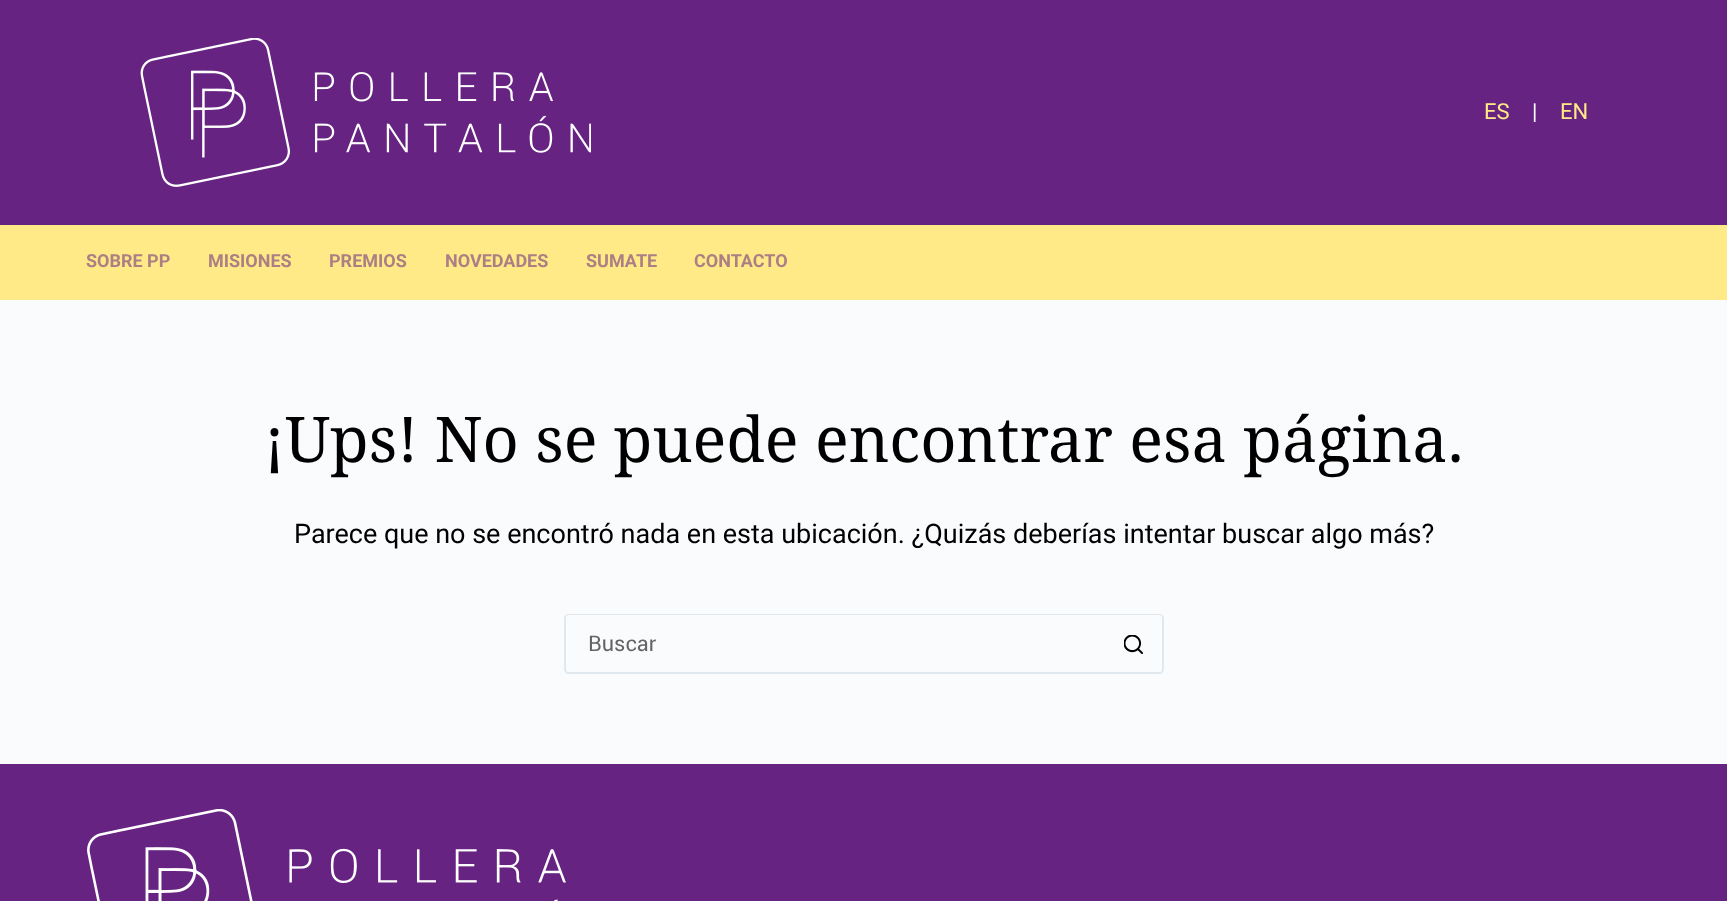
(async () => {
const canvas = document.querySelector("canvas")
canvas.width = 1727
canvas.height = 901
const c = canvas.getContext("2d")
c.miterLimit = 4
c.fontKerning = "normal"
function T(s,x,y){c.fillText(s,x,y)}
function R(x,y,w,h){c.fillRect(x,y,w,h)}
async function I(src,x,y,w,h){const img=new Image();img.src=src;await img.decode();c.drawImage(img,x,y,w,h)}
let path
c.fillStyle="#fafbfc"
R(0,0,1727,901)
c.fillStyle="#662382"
R(0,0,1727,225)
await I("1.png",140,38,451,149)
c.font="22px Roboto"
c.fillStyle="#ffea87"
T("ES",1484,119)
c.fillStyle="#fff"
T("|",1532,119)
c.fillStyle="#ffea87"
T("EN",1560,119)
R(0,225,1727,75)
c.font="bold 18px Roboto"
c.fillStyle="#ac7f84"
T("SOBRE PP",86,267)
T("MISIONES",208,267)
T("PREMIOS",329,267)
T("NOVEDADES",445,267)
T("SUMATE",586,267)
T("CONTACTO",694,267)
c.font="63px Noto Serif"
c.fillStyle="#000"
T("¡Ups! No se puede encontrar esa página.",264,462)
c.font="27px Roboto"
T("Parece que no se encontró nada en esta ubicación. ¿Quizás deberías intentar buscar algo más?",294,543)
c.fillStyle="#e1e8ed"
path = new Path2D("M568 614h536v60h-536c-2 0-4-3-4-5v-51c0-2 2-4 4-4zm0 1h536v57h-536c-1 0-2-1-2-3v-51c0-2 1-3 2-3z")
c.fill(path,"evenodd")
c.font="24px Yantramanav"
c.fillStyle="#646465"
T("Buscar",588,651)
c.fillStyle="#e1e8ed"
path = new Path2D("M1104 614h56c2 0 4 2 4 4v51c0 2-2 5-4 5h-56zm0 1h56c1 0 2 1 2 3v51c0 2-1 3-2 3h-56z")
c.fill(path,"evenodd")
await I("2.png",1124,635,19,19)
c.fillStyle="#662382"
R(0,764,1727,137)
await I("3.png",87,809,479,92)
})()
